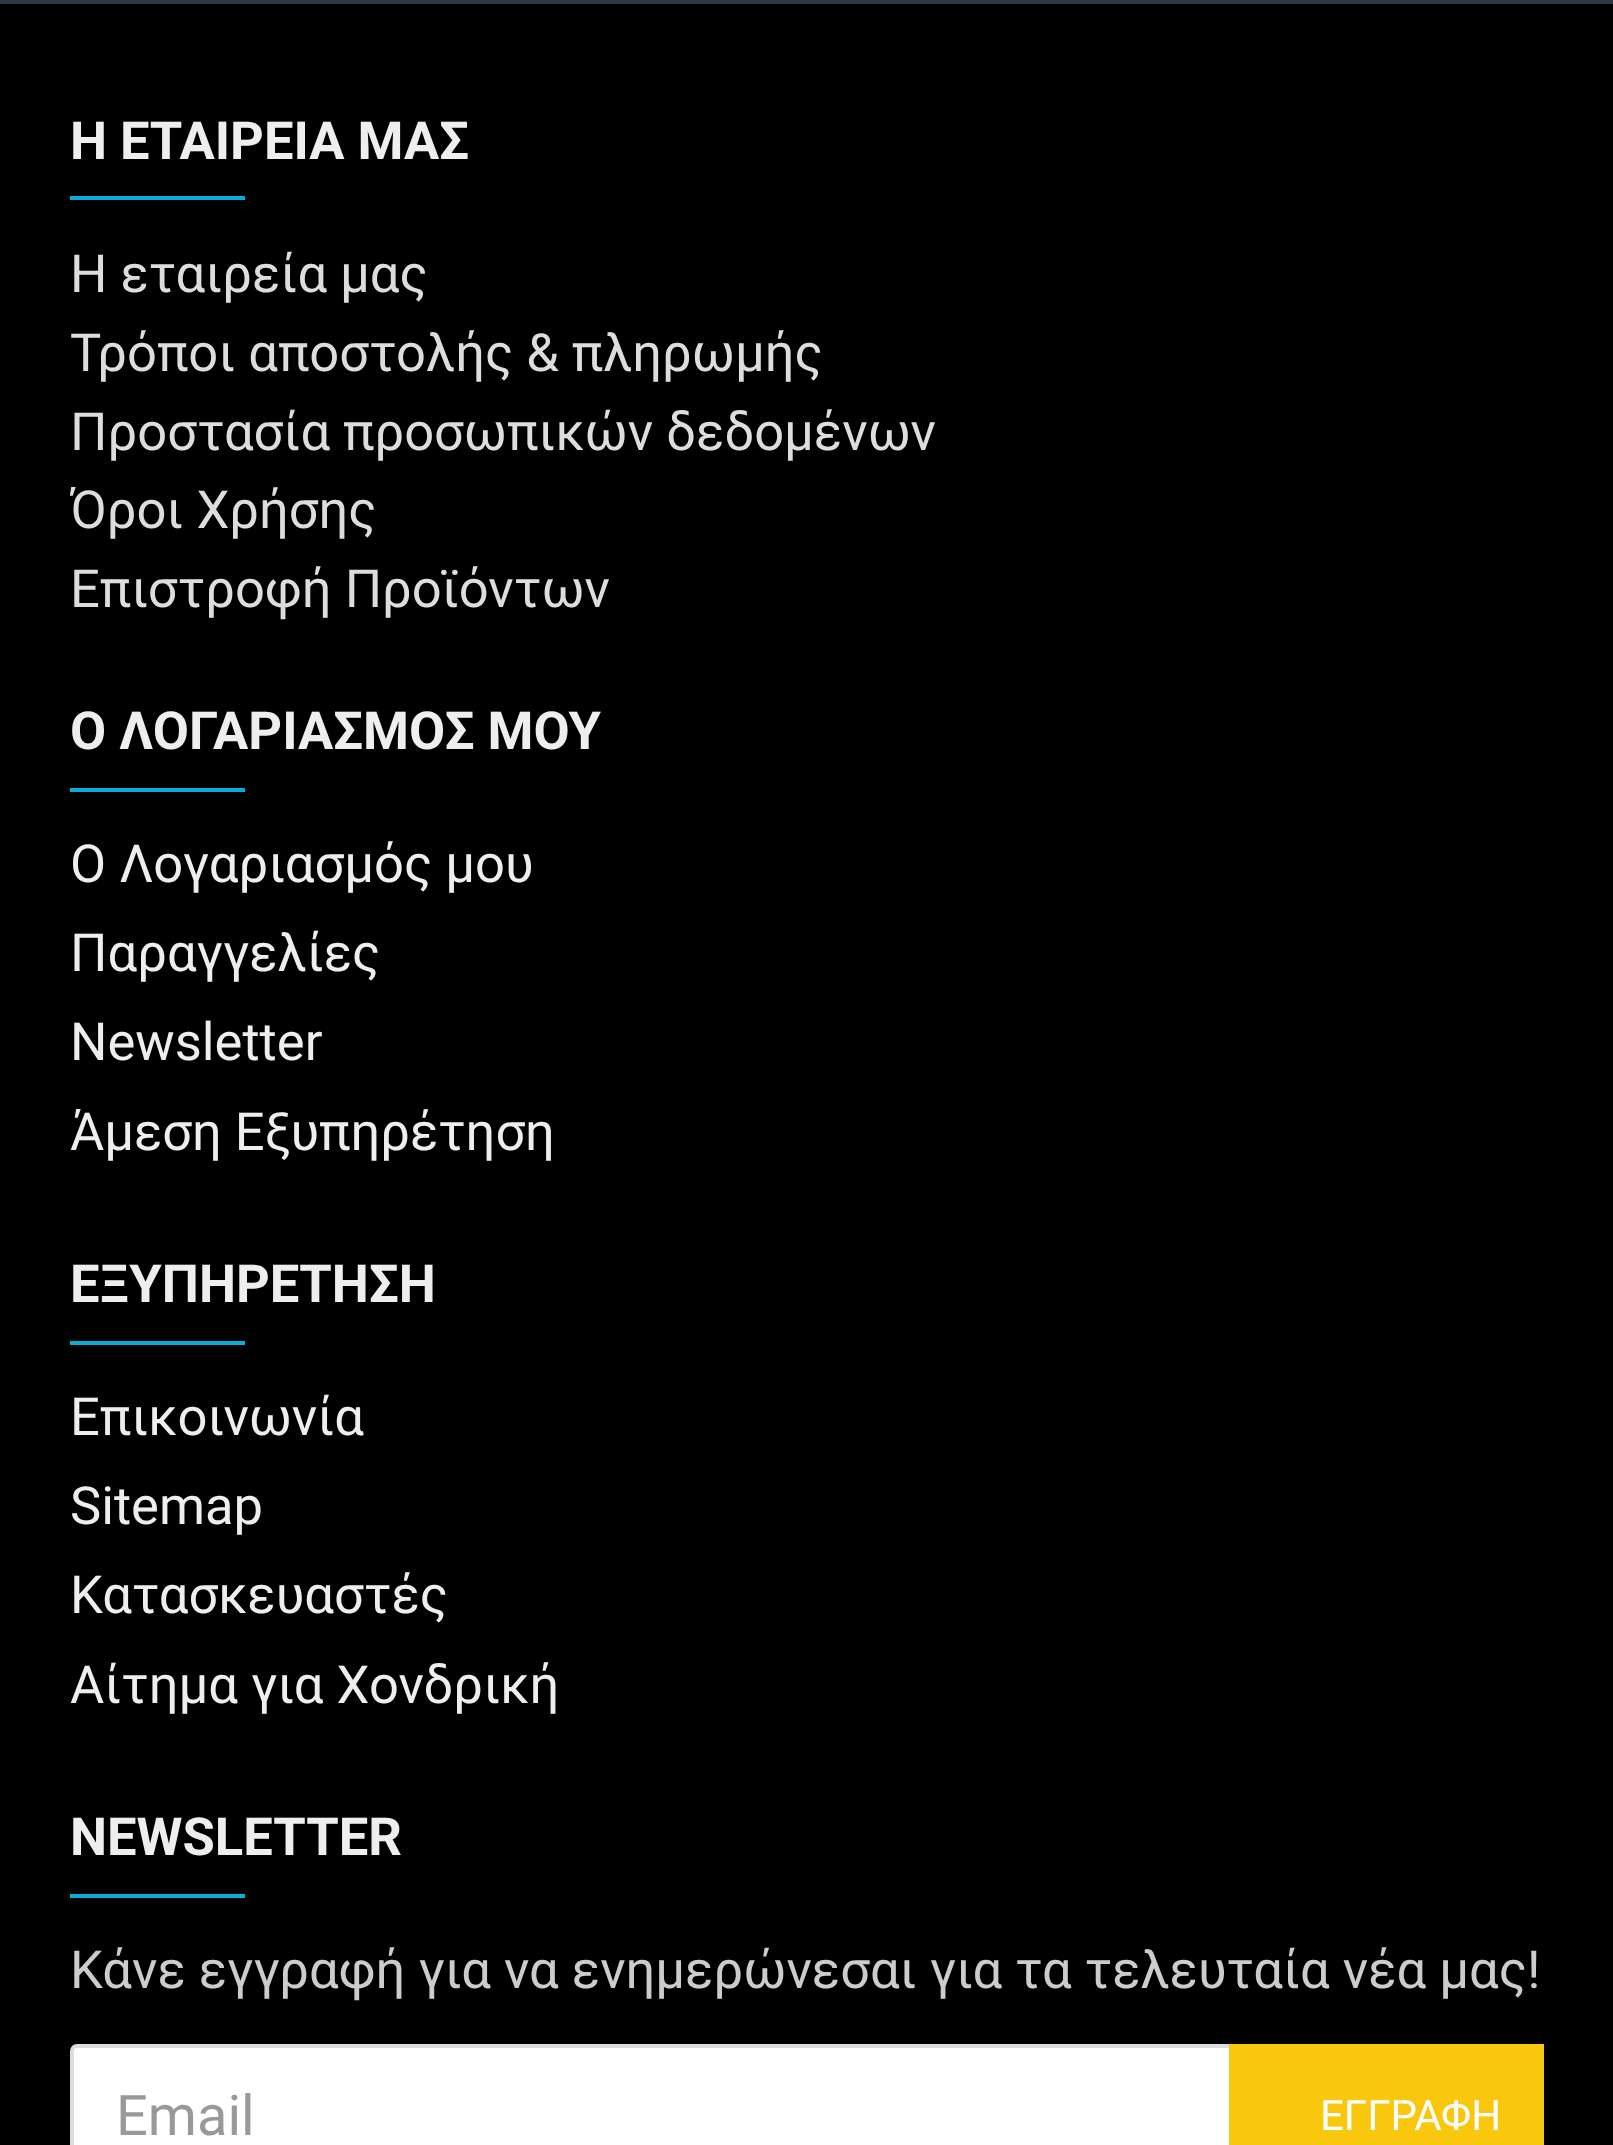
(async () => {
const canvas = document.querySelector("canvas")
canvas.width = 1613
canvas.height = 2145
const c = canvas.getContext("2d")
c.miterLimit = 4
c.fontKerning = "normal"
function T(s,x,y){c.fillText(s,x,y)}
function R(x,y,w,h){c.fillRect(x,y,w,h)}
c.fillStyle="#000"
R(0,0,1613,2145)
c.fillStyle="#303841"
R(0,0,1613,4)
c.font="bold 52.5px Roboto"
c.fillStyle="#eee"
T("Η ΕΤΑΙΡΕΙΑ ΜΑΣ",70,159)
c.fillStyle="#06aed5"
R(70,196,175,4)
c.font="52.5px Roboto"
c.fillStyle="#ddd"
T("Η εταιρεία μας",70,292)
T("Τρόποι αποστολής & πληρωμής",70,371)
T("Προστασία προσωπικών δεδομένων",70,450)
T("Όροι Χρήσης",70,528)
T("Επιστροφή Προϊόντων",70,607)
c.font="bold 52.5px Roboto"
c.fillStyle="#eee"
T("Ο ΛΟΓΑΡΙΑΣΜΟΣ ΜΟΥ",70,749)
c.fillStyle="#06aed5"
R(70,788,175,4)
c.font="52.5px Roboto"
c.fillStyle="#eee"
T("Ο Λογαριασμός μου",70,882)
T("Παραγγελίες",70,971)
T("Newsletter",70,1060)
T("Άμεση Εξυπηρέτηση",70,1150)
c.font="bold 52.5px Roboto"
T("ΕΞΥΠΗΡΕΤΗΣΗ",70,1302)
c.fillStyle="#06aed5"
R(70,1341,175,4)
c.font="52.5px Roboto"
c.fillStyle="#eee"
T("Επικοινωνία",70,1435)
T("Sitemap",70,1524)
T("Κατασκευαστές",70,1613)
T("Αίτημα για Χονδρική",70,1703)
c.font="bold 52.5px Roboto"
T("NEWSLETTER",70,1855)
c.fillStyle="#06aed5"
R(70,1894,175,4)
c.font="52.5px Roboto"
c.fillStyle="#ccc"
T("Κάνε εγγραφή για να ενημερώνεσαι για τα τελευταία νέα μας!",70,1988)
c.fillStyle="#fff"
c.beginPath()
c.roundRect(72,2046,1470,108,5)
c.fill()
c.strokeStyle="#ddd"
c.lineWidth=4
c.stroke()
c.font="56px Roboto"
c.fillStyle="#999"
T("Email",116,2135)
c.fillStyle="#f9c80e"
R(1229,2044,315,101)
c.font="42px Roboto"
c.fillStyle="#fff"
T("ΕΓΓΡΑΦΗ",1320,2130)
})()
